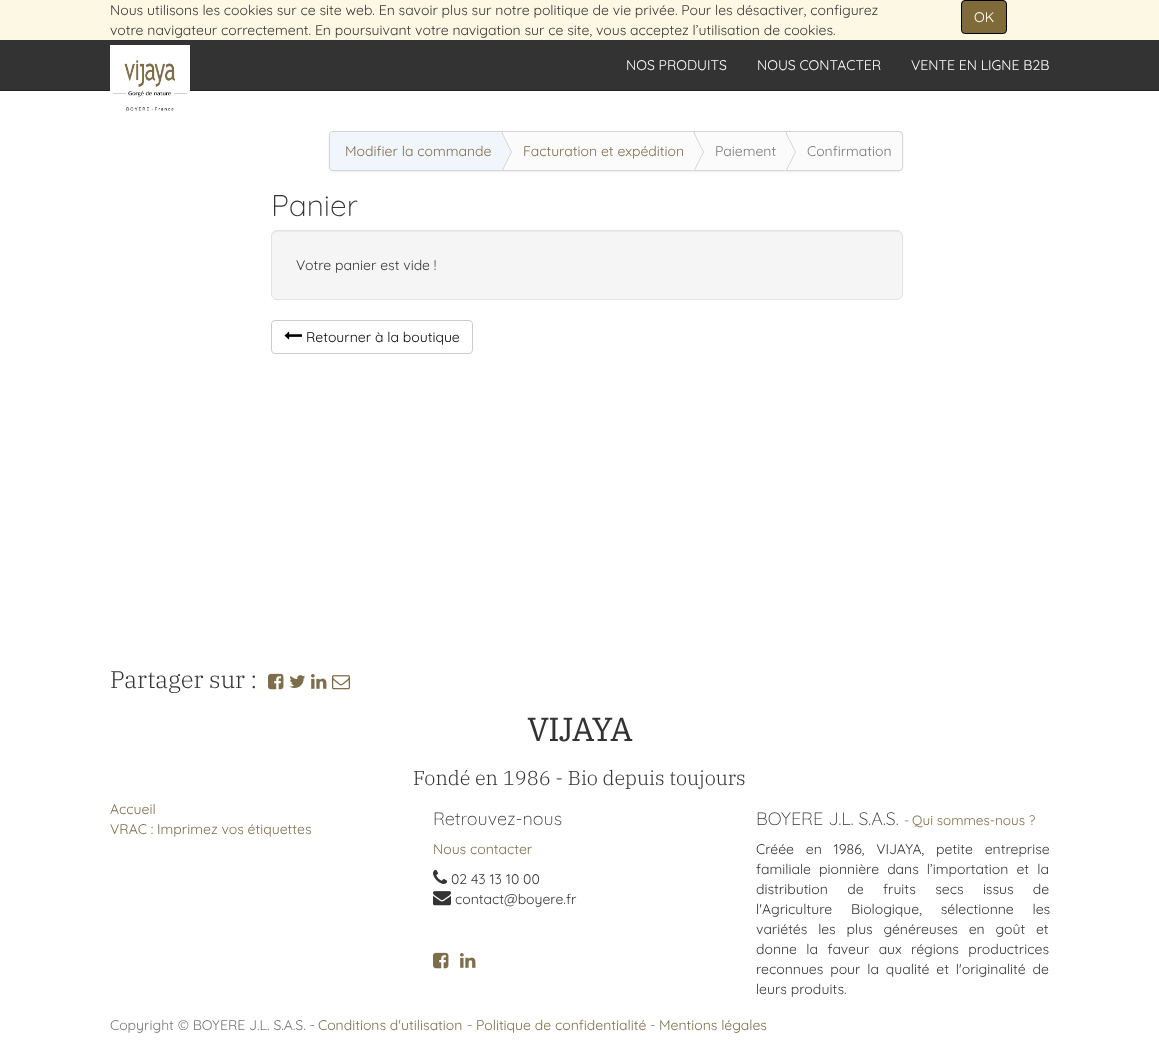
(async () => {
const canvas = document.querySelector("canvas")
canvas.width = 1159
canvas.height = 1043
const c = canvas.getContext("2d")
c.miterLimit = 4
c.fontKerning = "normal"
function T(s,x,y){c.fillText(s,x,y)}
function R(x,y,w,h){c.fillRect(x,y,w,h)}
function Q(x,y,w,h,r){c.beginPath();c.roundRect(x,y,w,h,r);c.fill()}
async function I(src,x,y,w,h){const img=new Image();img.src=src;await img.decode();c.drawImage(img,x,y,w,h)}
let path
c.fillStyle="#fff"
R(0,0,1159,1043)
c.fillStyle="#fcf8e3"
R(0,0,1159,40)
c.font="300 14px Quicksand"
c.fillStyle="#333"
T("Nous utilisons les cookies sur ce site web. En savoir plus sur notre politique de vie privée. Pour les désactiver, configurez",110,15)
T("votre navigateur correctement. En poursuivant votre navigation sur ce site, vous acceptez l’utilisation de cookies.",110,35)
c.fillStyle="#7f6b39"
c.beginPath()
c.roundRect(961.5,.5,45,33,3.5)
c.fill()
c.strokeStyle="#000"
c.stroke()
c.fillStyle="#fff"
T("OK",974,22)
c.fillStyle="#333"
R(0,40,1159,50)
c.fillStyle="#222"
R(0,90,1159,1)
await I("1.png",110,45,80,66)
c.fillStyle="#fff"
T("NOS PRODUITS",626,70)
T("NOUS CONTACTER",757,70)
T("VENTE EN LIGNE B2B",911,70)
c.fillStyle="#00000012"
c.filter="blur(1px)"
c.beginPath()
c.roundRect(329,132,574,40,4)
c.fill()
c.filter="none"
c.fillStyle="#f1f6fc"
c.beginPath()
c.roundRect(330,132,172,38,[3,0,0,3])
c.fill()
c.fillStyle="#d4d4d4"
path = new Path2D("M333 131h169v40h-169c-2 0-4-2-4-4v-32c0-2 2-4 4-4zm0 1h169v38h-169c-2 0-3-1-3-3v-32c0-2 1-3 3-3z")
c.fill(path,"evenodd")
c.fillStyle="#7e6d4a"
T("Modifier la commande",345,156)
c.fillStyle="#fbfbfb"
R(503,132,191,38)
c.fillStyle="#d4d4d4"
R(502,170,284,1)
R(502,131,284,1)
R(502,131,1,40)
path = new Path2D("M502 172v-40l10 20z")
c.fill(path)
c.fillStyle="#f1f6fc"
path = new Path2D("M501 172v-40l10 20z")
c.fill(path)
c.fillStyle="#7e6d4a"
T("Facturation et expédition",523,156)
c.fillStyle="#fbfbfb"
R(695,132,91,38)
c.fillStyle="#d4d4d4"
R(694,131,1,40)
path = new Path2D("M694 172v-40l10 20z")
c.fill(path)
c.fillStyle="#fbfbfb"
path = new Path2D("M693 172v-40l10 20z")
c.fill(path)
c.fillStyle="#777"
T("Paiement",715,156)
c.fillStyle="#fbfbfb"
c.beginPath()
c.roundRect(786.5,131.5,116,39,[0,3.5,3.5,0])
c.fill()
c.strokeStyle="#d4d4d4"
c.stroke()
c.fillStyle="#d4d4d4"
path = new Path2D("M786 172v-40l10 20z")
c.fill(path)
c.fillStyle="#fbfbfb"
path = new Path2D("M785 172v-40l10 20z")
c.fill(path)
c.fillStyle="#777"
T("Confirmation",807,156)
c.font="300 30px 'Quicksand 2'"
c.fillStyle="#333"
T("Panier",271,216)
c.fillStyle="#f5f5f5"
Q(271,230,632,70,6)
c.fillStyle="#e9e9e9"
path = new Path2D("M277 232h620c3 0 5 2 5 5c0-3-2-6-5-6h-620c-3 0-5 3-5 6c0-3 2-5 5-5z")
c.fill(path)
c.beginPath()
c.roundRect(271.5,230.5,631,69,5.5)
c.strokeStyle="#e3e3e3"
c.stroke()
c.font="300 14px Quicksand"
c.fillStyle="#333"
T("Votre panier est vide !",296,270)
c.beginPath()
c.roundRect(271.5,320.5,201,33,3.5)
c.strokeStyle="#ccc"
c.stroke()
await I("2.png",284,331,18,9)
c.fillStyle="#000"
T("Retourner à la boutique",306,342)
c.font="300 24px IBM Plex Serif"
c.fillStyle="#333"
T("Partager sur :",110,688)
await I("3.png",268,673,16,17)
await I("4.png",289,675,17,13)
await I("5.png",311,674,16,15)
await I("6.png",332,675,18,15)
c.font="bold 32px IBM Plex Serif"
T("VIJAYA",527,741)
c.font="300 20px IBM Plex Serif"
T("Fondé en 1986 - Bio depuis toujours",413,785)
c.font="300 14px Quicksand"
c.fillStyle="#7e6d4a"
T("Accueil",110,814)
T("VRAC : Imprimez vos étiquettes",110,834)
c.font="300 18px 'Quicksand 2'"
c.fillStyle="#333"
T("Retrouvez-nous",433,825)
c.font="300 14px Quicksand"
c.fillStyle="#7e6d4a"
T("Nous contacter",433,854)
await I("7.png",433,869,15,15)
c.fillStyle="#333"
T("02 43 13 10 00",451,884)
await I("8.png",433,891,18,15)
T("contact@boyere.fr",455,904)
await I("3.png",433,952,16,17)
await I("5.png",460,953,16,15)
c.font="300 18px 'Quicksand 2'"
T("BOYERE J.L. S.A.S.",756,825)
c.font="300 13.5px Quicksand"
c.fillStyle="#777"
T("-",904,825)
c.fillStyle="#7e6d4a"
T("Qui sommes-nous ?",912,825)
c.wordSpacing="8px"
c.font="300 14px Quicksand"
c.fillStyle="#333"
T("Créée en 1986, VIJAYA, petite entreprise",756,854)
c.wordSpacing="4.25px"
T("familiale pionnière dans l’importation et la",756,874)
c.wordSpacing="15.5px"
T("distribution de fruits secs issus de",756,894)
c.wordSpacing="15px"
T("l'Agriculture Biologique, sélectionne les",756,914)
c.wordSpacing="7px"
T("variétés les plus généreuses en goût et",756,934)
c.wordSpacing="5.5px"
T("donne la faveur aux régions productrices",756,954)
c.wordSpacing="3px"
T("reconnues pour la qualité et l'originalité de",756,974)
c.wordSpacing="0px"
T("leurs produits.",756,994)
c.fillStyle="#777"
T("Copyright © BOYERE J.L. S.A.S. -",110,1030)
c.fillStyle="#7e6d4a"
T("Conditions d'utilisation",318,1030)
c.fillStyle="#777"
T("-",467,1030)
c.fillStyle="#7e6d4a"
T("Politique de confidentialité",476,1030)
c.fillStyle="#777"
T("-",650,1030)
c.fillStyle="#7e6d4a"
T("Mentions légales",659,1030)
})()
